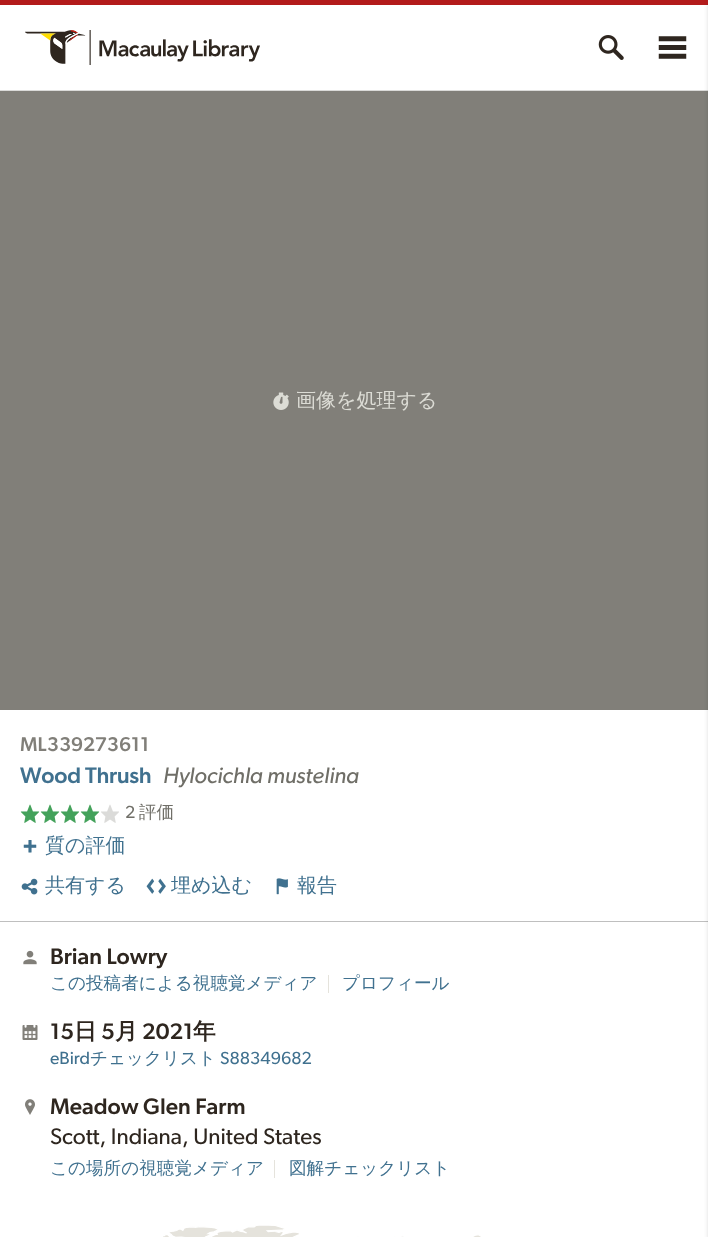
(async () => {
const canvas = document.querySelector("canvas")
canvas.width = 708
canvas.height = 1237
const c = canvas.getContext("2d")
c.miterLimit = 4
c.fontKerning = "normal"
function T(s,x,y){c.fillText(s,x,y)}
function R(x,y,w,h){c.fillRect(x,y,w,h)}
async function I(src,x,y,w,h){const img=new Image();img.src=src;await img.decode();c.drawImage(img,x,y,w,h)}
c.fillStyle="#fff"
R(0,0,708,1237)
c.fillStyle="#b31b1b"
R(0,0,708,5)
c.fillStyle="#dbdbd9"
R(0,90,708,1)
await I("1.png",25,30,235,35)
await I("2.png",598,35,26,25)
await I("3.png",658,36,29,23)
c.fillStyle="#817f79"
R(0,91,708,619)
c.fillStyle="#bfbfbf"
R(0,921,708,1)
c.fillStyle="#00000033"
c.filter="blur(2.5px)"
c.beginPath()
c.rect(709,3,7,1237)
c.fill()
c.filter="none"
await I("4.png",273,392,16,18)
c.font="500 20px WenQuanYi Zen Hei"
c.fillStyle="#dcdcd5"
T("画像を処理する",296,407)
c.letterSpacing="0.1px"
c.font="500 20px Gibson"
c.fillStyle="#817f79"
T("ML339273611",20,751)
c.letterSpacing="-0.25px"
c.font="500 22.6px Gibson"
c.fillStyle="#40718f"
T("Wood Thrush",20,783)
c.letterSpacing="0px"
c.font="italic 22.6px Gibson"
c.fillStyle="#6f6e67"
T("Hylocichla mustelina",163,783)
await I("5.png",20,804,20,19)
await I("5.png",40,804,20,19)
await I("5.png",60,804,20,19)
await I("5.png",80,804,20,19)
await I("6.png",101,804,18,19)
c.font="17.6px Gibson"
T("2",125,818)
c.font="500 17.6px WenQuanYi Zen Hei"
T("評価",139,818)
await I("7.png",23,840,14,13)
c.font="500 20px WenQuanYi Zen Hei"
c.fillStyle="#40718f"
T("質の評価",45,852)
await I("8.png",21,878,17,17)
T("共有する",45,892)
await I("9.png",146,878,20,16)
T("埋め込む",171,892)
await I("10.png",276,878,12,17)
T("報告",297,892)
await I("11.png",23,950,14,15)
c.font="500 22.6px Gibson"
c.fillStyle="#2e261f"
T("Brian Lowry",50,964)
c.font="500 17.6px WenQuanYi Zen Hei"
c.fillStyle="#40718f"
T("この投稿者による視聴覚メディア",50,989)
c.fillStyle="#e5e3dc"
R(328,975,1,18)
c.fillStyle="#40718f"
T("プロフィール",342,989)
await I("12.png",22,1025,16,15)
c.font="500 22.6px Gibson"
c.fillStyle="#2e261f"
T("15",50,1039)
c.font="bold 22.6px WenQuanYi Zen Hei"
T("日",74,1039)
c.font="500 22.6px Gibson"
T("5",101,1039)
c.font="bold 22.6px WenQuanYi Zen Hei"
T("月",115,1039)
c.font="500 22.6px Gibson"
T("2021",142,1039)
c.font="bold 22.6px WenQuanYi Zen Hei"
T("年",193,1039)
c.font="17.6px Gibson"
c.fillStyle="#40718f"
T("eBird",50,1064)
c.font="500 17.6px WenQuanYi Zen Hei"
T("チェックリスト",90,1064)
c.font="17.6px Gibson"
T("S88349682",220,1064)
await I("13.png",25,1099,10,16)
c.font="500 22.6px Gibson"
c.fillStyle="#2e261f"
T("Meadow Glen Farm",50,1114)
c.font="22.6px Gibson"
T("Scott, Indiana, United States",50,1144)
c.font="500 17.6px WenQuanYi Zen Hei"
c.fillStyle="#40718f"
T("この場所の視聴覚メディア",50,1174)
c.fillStyle="#e5e3dc"
R(274,1160,1,18)
c.fillStyle="#40718f"
T("図解チェックリスト",289,1174)
await I("14.png",163,1225,318,12)
})()
